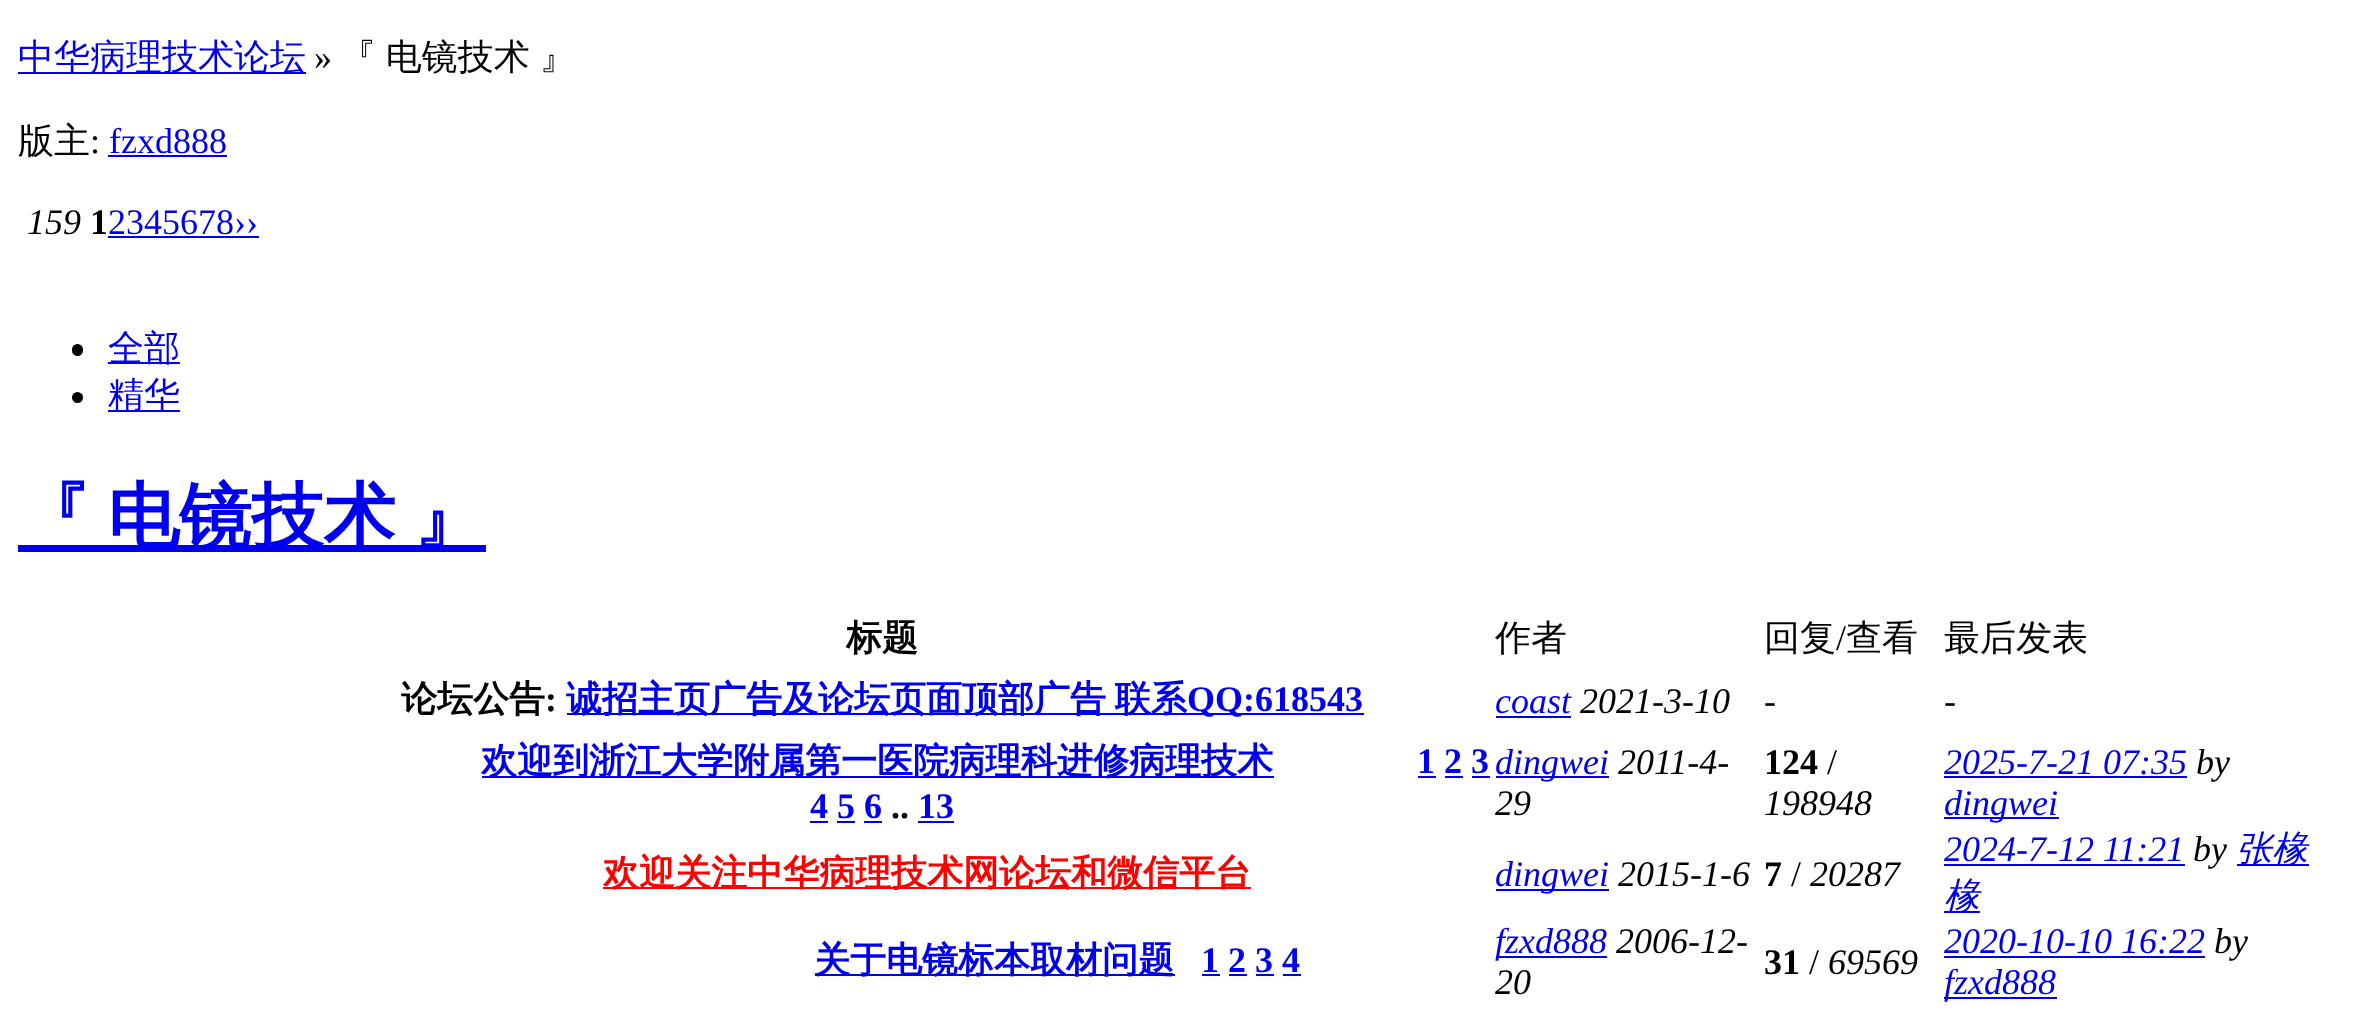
(async () => {
const canvas = document.querySelector("canvas")
canvas.width = 2358
canvas.height = 1023
const c = canvas.getContext("2d")
c.miterLimit = 4
c.fontKerning = "normal"
function T(s,x,y){c.fillText(s,x,y)}
function R(x,y,w,h){c.fillRect(x,y,w,h)}
function Q(x,y,w,h,r){c.beginPath();c.roundRect(x,y,w,h,r);c.fill()}
c.fillStyle="#fff"
R(0,0,2358,1023)
c.fillStyle="#00e"
R(18,72,288,2)
c.font="500 36px WenQuanYi Zen Hei"
T("中华病理技术论坛",18,69)
c.font="36px Liberation Serif"
c.fillStyle="#000"
T("»",314,69)
c.wordSpacing="-1px"
c.font="500 36px WenQuanYi Zen Hei"
T("『 电镜技术 』",340,69)
c.wordSpacing="0px"
T("版主",18,153)
c.font="36px Liberation Serif"
T(":",90,153)
c.fillStyle="#00e"
T("fzxd888",109,153)
R(108,155,119,2)
c.font="italic 36px Liberation Serif"
c.fillStyle="#000"
T("159",27,234)
c.font="bold 36px Liberation Serif"
T("1",90,234)
c.font="36px Liberation Serif"
c.fillStyle="#00e"
T("2345678››",108,234)
R(108,236,151,2)
c.fillStyle="#000"
Q(72,344,11,12,5.5)
c.fillStyle="#00e"
R(108,362,72,2)
c.font="500 36px WenQuanYi Zen Hei"
T("全部",108,360)
c.fillStyle="#000"
c.beginPath()
c.arc(77.5,397.5,5.5,0,7)
c.fill()
c.fillStyle="#00e"
R(108,410,72,2)
T("精华",108,407)
R(18,545,468,7)
c.wordSpacing="-4px"
c.font="bold 72px WenQuanYi Zen Hei"
T("『 电镜技术 』",18,541)
c.wordSpacing="0px"
c.font="bold 36px WenQuanYi Zen Hei"
c.fillStyle="#000"
T("标题",846,650)
c.font="500 36px WenQuanYi Zen Hei"
T("作者",1495,650)
T("回复",1764,650)
c.font="36px Liberation Serif"
T("/",1836,650)
c.font="500 36px WenQuanYi Zen Hei"
T("查看",1846,650)
T("最后发表",1944,650)
c.font="bold 36px WenQuanYi Zen Hei"
T("论坛公告",401,711)
c.font="bold 36px Liberation Serif"
T(":",545,711)
c.fillStyle="#00e"
R(567,713,797,2)
c.wordSpacing="-2px"
c.font="bold 36px WenQuanYi Zen Hei"
T("诚招主页广告及论坛页面顶部广告 联系",566,711)
c.wordSpacing="0px"
c.font="bold 36px Liberation Serif"
T("QQ:618543",1187,711)
c.font="italic 36px Liberation Serif"
T("coast",1495,713)
R(1496,716,75,2)
c.fillStyle="#000"
T("2021-3-10",1580,713)
c.font="36px Liberation Serif"
T("-",1764,713)
T("-",1944,713)
c.fillStyle="#00e"
R(482,776,792,2)
c.font="bold 36px WenQuanYi Zen Hei"
T("欢迎到浙江大学附属第一医院病理科进修病理技术",481,773)
c.font="bold 36px Liberation Serif"
T("1 2 3",1417,773)
R(1418,776,18,2)
R(1445,776,18,2)
R(1472,776,18,2)
T("4 5 6",810,818)
R(810,821,18,2)
R(837,821,18,2)
c.fillStyle="#000"
T("..",891,818)
c.fillStyle="#00e"
R(864,821,18,2)
R(918,821,36,2)
T("13",918,818)
R(1496,776,113,2)
c.font="italic 36px Liberation Serif"
T("dingwei",1495,774)
c.fillStyle="#000"
T("2011-4-",1618,774)
T("29",1495,815)
c.font="bold 36px Liberation Serif"
T("124",1764,774)
c.font="36px Liberation Serif"
T("/",1827,774)
c.font="italic 36px Liberation Serif"
T("198948",1764,815)
c.fillStyle="#00e"
T("2025-7-21 07:35",1944,774)
R(1944,776,243,2)
c.fillStyle="#000"
T("by",2196,774)
c.fillStyle="#00e"
R(1944,817,115,2)
T("dingwei",1944,815)
c.fillStyle="#f00"
R(603,887,648,2)
c.font="bold 36px WenQuanYi Zen Hei"
T("欢迎关注中华病理技术网论坛和微信平台",603,885)
c.fillStyle="#00e"
R(1496,889,113,2)
c.font="italic 36px Liberation Serif"
T("dingwei",1495,886)
c.fillStyle="#000"
T("2015-1-6",1618,886)
c.font="bold 36px Liberation Serif"
T("7",1764,886)
c.font="36px Liberation Serif"
T("/",1791,886)
c.font="italic 36px Liberation Serif"
T("20287",1810,886)
c.fillStyle="#00e"
T("2024-7-12 11:21",1944,861)
R(1944,864,241,2)
c.fillStyle="#000"
T("by",2193,861)
c.fillStyle="#00e"
R(2237,864,72,2)
c.font="italic 500 36px WenQuanYi Zen Hei"
T("张椽",2236,861)
R(1944,911,36,2)
T("椽",1944,908)
R(815,974,360,2)
c.font="bold 36px WenQuanYi Zen Hei"
T("关于电镜标本取材问题",814,972)
c.font="bold 36px Liberation Serif"
T("1 2 3 4",1201,972)
R(1202,974,18,2)
R(1229,974,18,2)
R(1256,974,18,2)
R(1283,974,18,2)
R(1496,956,111,2)
c.font="italic 36px Liberation Serif"
T("fzxd888",1495,953)
c.fillStyle="#000"
T("2006-12-",1616,953)
T("20",1495,994)
c.font="bold 36px Liberation Serif"
T("31",1764,974)
c.font="36px Liberation Serif"
T("/",1809,974)
c.font="italic 36px Liberation Serif"
T("69569",1828,974)
c.fillStyle="#00e"
T("2020-10-10 16:22",1944,953)
R(1944,956,261,2)
c.fillStyle="#000"
T("by",2214,953)
c.fillStyle="#00e"
R(1944,997,113,2)
T("fzxd888",1944,994)
})()
